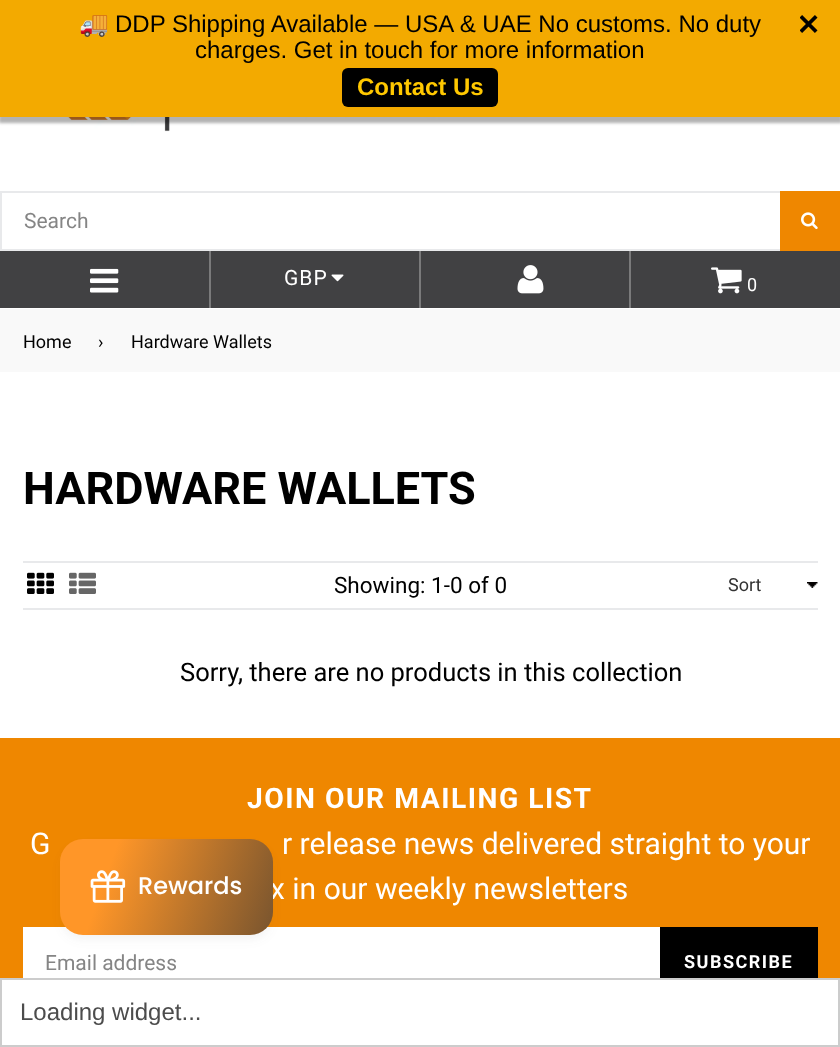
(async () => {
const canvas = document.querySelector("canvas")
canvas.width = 840
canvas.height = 1047
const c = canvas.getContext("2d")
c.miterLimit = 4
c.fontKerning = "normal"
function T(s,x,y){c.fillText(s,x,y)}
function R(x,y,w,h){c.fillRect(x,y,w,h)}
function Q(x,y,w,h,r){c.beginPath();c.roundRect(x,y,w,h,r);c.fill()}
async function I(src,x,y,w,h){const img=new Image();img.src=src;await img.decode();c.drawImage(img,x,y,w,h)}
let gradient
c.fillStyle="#fff"
R(0,0,840,1047)
await I("2.png",55,117,533,15)
c.fillStyle="#0000004d"
c.filter="blur(1.5px)"
c.beginPath()
c.rect(-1,3,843,120)
c.fill()
c.filter="none"
c.fillStyle="#f3aa00"
R(0,0,840,117)
c.font="24px Noto Color Emoji"
c.fillStyle="#000"
T("🚚",79,32)
c.font="24px Liberation Sans"
T("DDP Shipping Available — USA & UAE No customs. No duty",115,32)
T("charges. Get in touch for more information",195,58)
Q(342,68,156,39,6)
c.font="bold 24px Liberation Sans"
c.fillStyle="#ffc800"
T("Contact Us",357,95)
await I("1.png",800,15,18,18)
c.fillStyle="#e8e9eb"
R(0,191,780,2)
R(0,249,780,2)
R(0,191,2,60)
c.font="21px Roboto"
c.fillStyle="#858585"
T("Search",24,228)
c.fillStyle="#ef8700"
R(780,191,60,60)
await I("3.png",801,212,17,18)
c.fillStyle="#414143"
R(0,251,840,57)
c.fillStyle="#7a7a7b"
R(629,251,2,58)
R(419,251,2,58)
R(209,251,2,58)
c.fillStyle="#fff"
R(209,308,422,1)
await I("4.png",90,268,29,25)
c.letterSpacing="1px"
T("GBP",284,285)
await I("5.png",331,274,13,8)
await I("6.png",517,265,27,29)
await I("7.png",711,267,31,27)
c.letterSpacing="2px"
c.font="18px Roboto"
T("0",747,291)
c.fillStyle="#f9f9f9"
R(0,309,840,63)
c.letterSpacing="0px"
c.fillStyle="#000"
T("Home",23,348)
T("›",98,348)
T("Hardware Wallets",131,348)
c.font="bold 45px Roboto"
T("HARDWARE WALLETS",23,504)
c.fillStyle="#e8e9eb"
R(23,561,795,2)
R(23,608,795,2)
await I("8.png",27,572,27,22)
await I("9.png",69,572,27,22)
c.font="22.5px Roboto"
c.fillStyle="#000"
T("Showing: 1-0 of 0",334,593)
await I("10.png",807,582,11,6)
c.font="18px Roboto"
c.fillStyle="#333"
T("Sort",728,591)
c.font="25.5px Roboto"
c.fillStyle="#000"
T("Sorry, there are no products in this collection",180,681)
c.fillStyle="#ef8700"
R(0,738,840,240)
c.letterSpacing="1.5px"
c.font="bold 28.25px Roboto"
c.fillStyle="#fff"
T("JOIN OUR MAILING LIST",247,808)
c.letterSpacing="0px"
c.font="30px Roboto"
T("G",30,854)
T("r release news delivered straight to your",282,854)
T("x in our weekly newsletters",270,899)
R(23,927,637,51)
c.font="21px Roboto"
c.fillStyle="#858585"
T("Email address",45,970)
c.fillStyle="#000"
R(660,927,158,51)
c.letterSpacing="1.5px"
c.font="bold 18px Roboto"
c.fillStyle="#fff"
T("SUBSCRIBE",684,968)
c.fillStyle="#44444414"
c.filter="blur(6px)"
c.beginPath()
c.roundRect(63,848,207,90,20)
c.fill()
c.filter="none"
gradient = c.createLinearGradient(57,848,364,957)
gradient.addColorStop(.17,"#ff9628")
gradient.addColorStop(1,"#323232")
c.fillStyle = gradient
Q(60,839,213,96,23)
await I("11.png",90,870,36,33)
c.letterSpacing="0px"
c.font="500 24px Poppins"
c.fillStyle="#fff"
T("Rewards",138,894)
c.strokeStyle="#ccc"
c.lineWidth=2
c.strokeRect(1,979,838,67)
c.font="24px Liberation Sans"
c.fillStyle="#4c4c4c"
T("Loading widget...",20,1020)
})()
